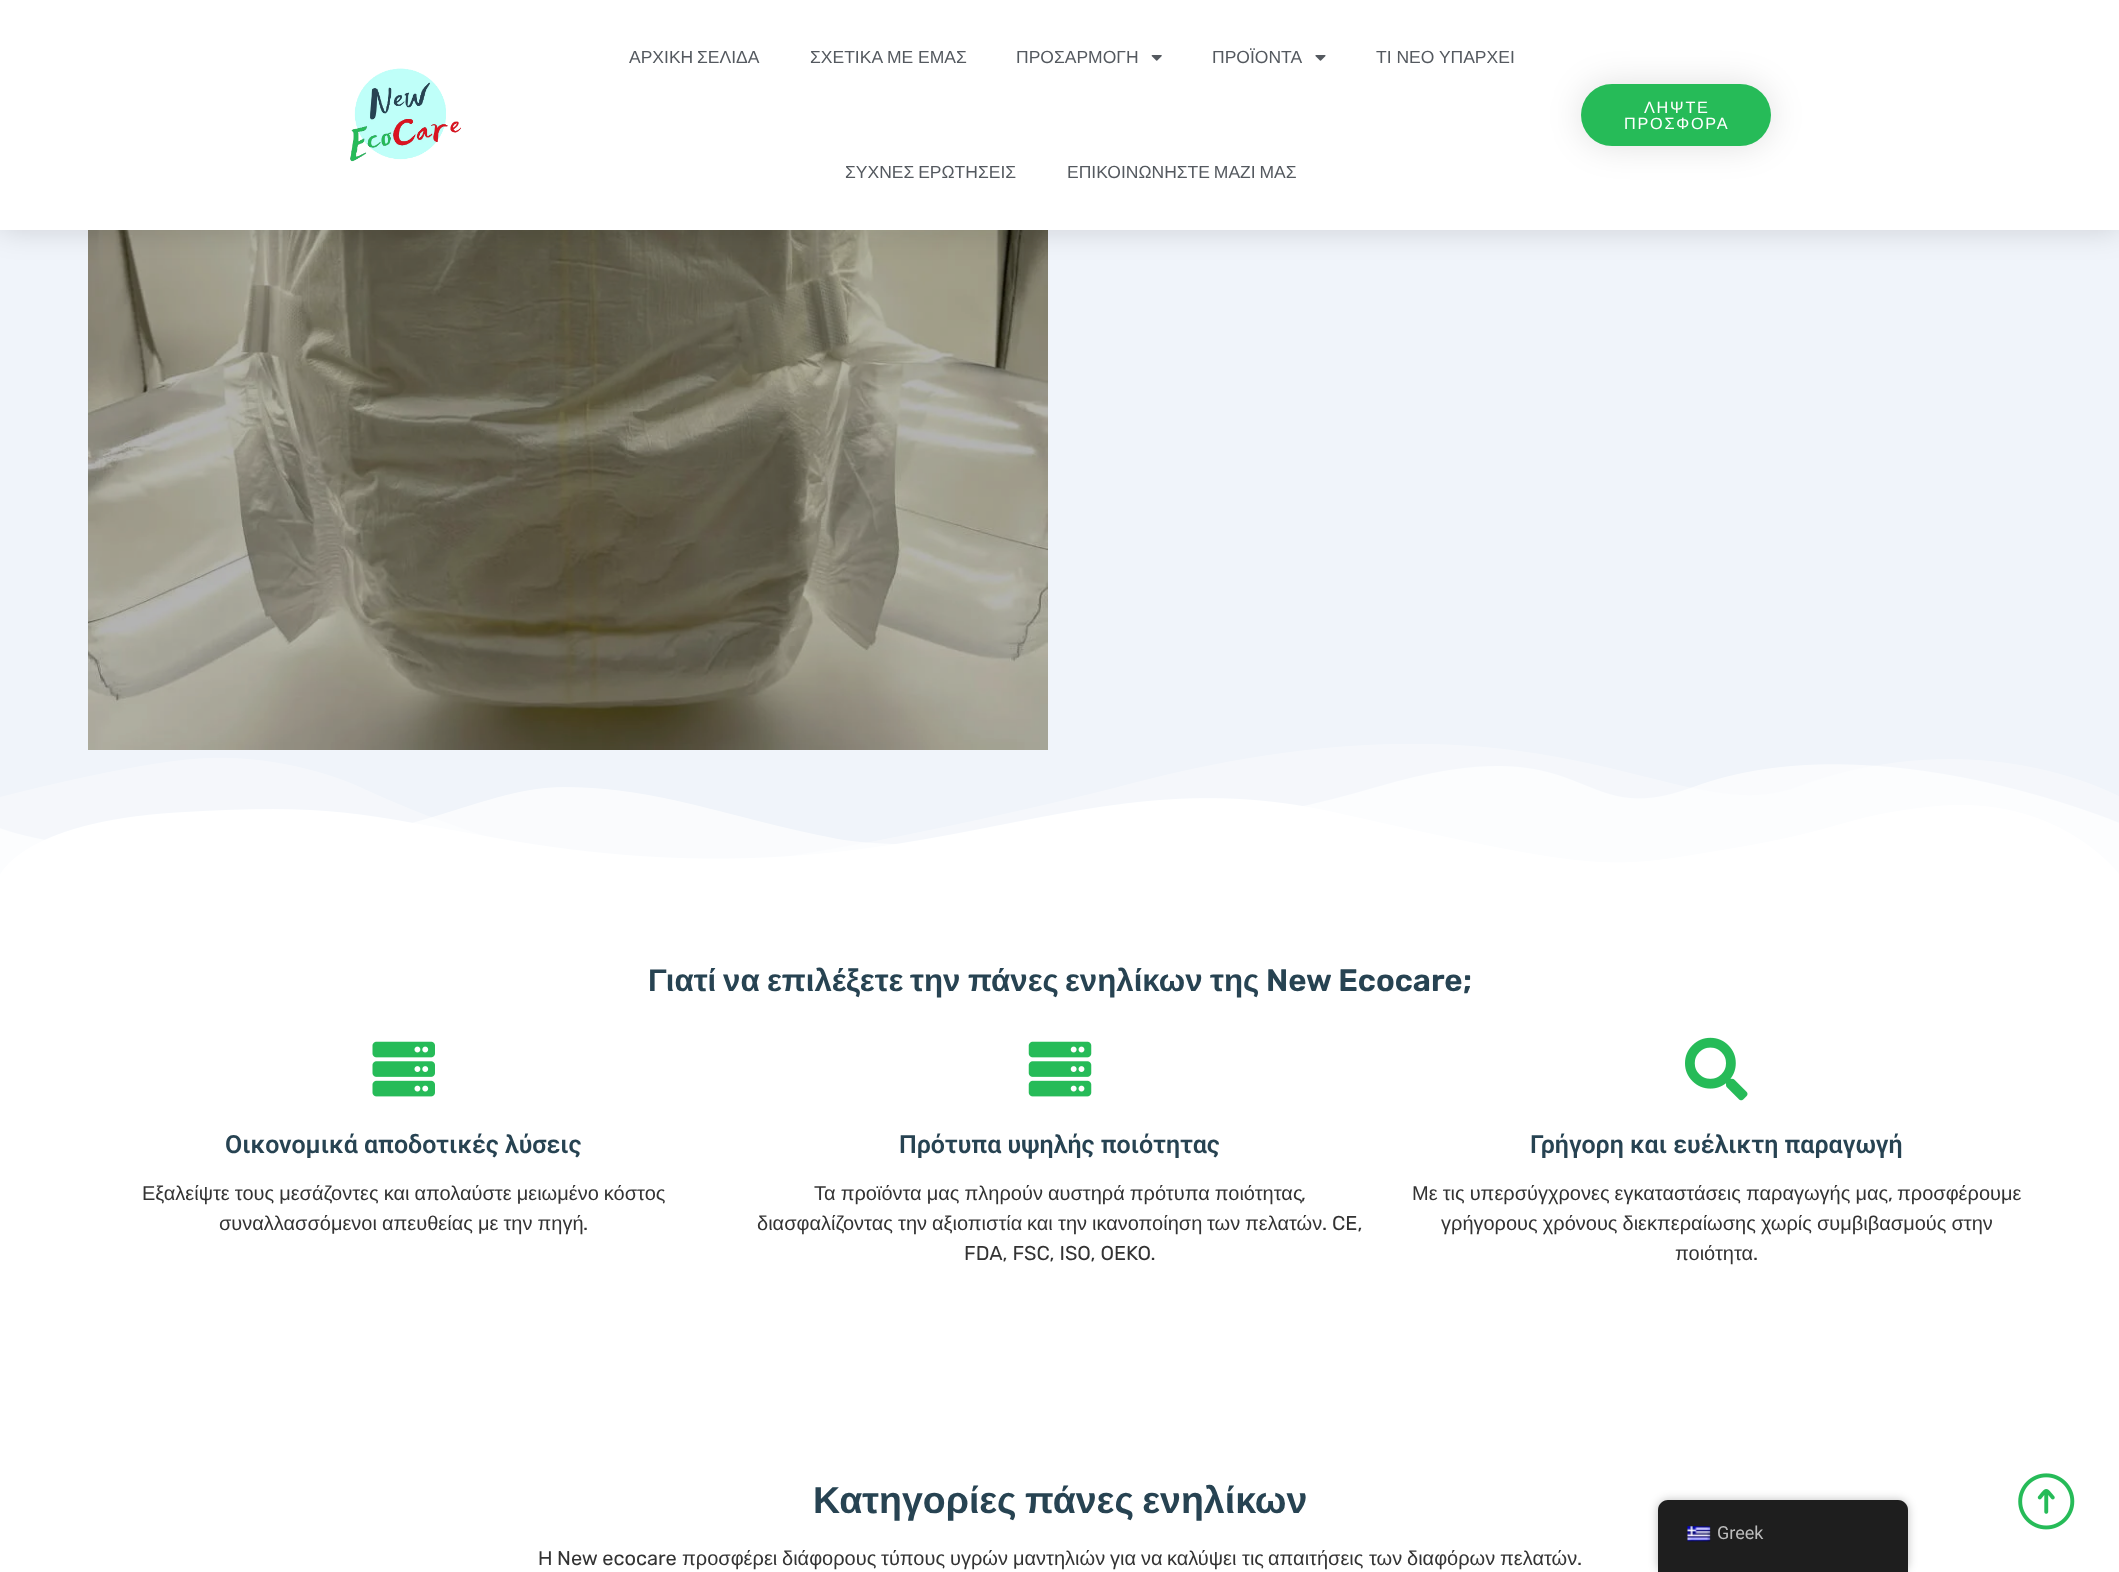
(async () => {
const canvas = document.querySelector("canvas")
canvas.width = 2119
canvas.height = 1572
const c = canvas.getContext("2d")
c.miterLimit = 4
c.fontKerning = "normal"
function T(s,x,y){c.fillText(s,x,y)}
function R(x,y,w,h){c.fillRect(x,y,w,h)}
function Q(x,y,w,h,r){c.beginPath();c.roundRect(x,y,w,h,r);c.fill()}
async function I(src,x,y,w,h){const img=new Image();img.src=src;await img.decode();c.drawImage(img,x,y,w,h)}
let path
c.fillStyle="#fff"
R(0,0,2119,1572)
c.fillStyle="#f0f4fa"
R(0,230,2119,645)
await I("6.png",0,744,2119,131)
await I("5.png",88,230,960,520)
c.fillStyle="#00000026"
c.filter="blur(15px)"
c.beginPath()
c.rect(0,0,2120,230)
c.fill()
c.filter="none"
c.fillStyle="#fff"
R(0,0,2119,230)
await I("1.png",350,68,111,94)
c.wordSpacing="-1px"
c.font="17.5px Liberation Sans"
c.fillStyle="#54595f"
T("ΑΡΧΙΚΗ ΣΕΛΙΔΑ",629,63)
c.wordSpacing="0px"
T("ΣΧΕΤΙΚΑ ΜΕ ΕΜΑΣ",810,63)
T("ΠΡΟΣΑΡΜΟΓΗ",1016,63)
await I("2.png",1151,55,11,6)
T("ΠΡΟΪΟΝΤΑ",1212,63)
await I("3.png",1315,55,11,6)
T("ΤΙ ΝΕΟ ΥΠΑΡΧΕΙ",1376,63)
c.wordSpacing="-1px"
T("ΣΥΧΝΕΣ ΕΡΩΤΗΣΕΙΣ",845,178)
T("ΕΠΙΚΟΙΝΩΝΗΣΤΕ ΜΑΖΙ ΜΑΣ",1067,178)
c.fillStyle="#0000001f"
c.filter="blur(17px)"
c.beginPath()
c.roundRect(1581,84,190,62,31)
c.fill()
c.filter="none"
c.fillStyle="#26bb58"
Q(1581,84,190,62,31)
c.letterSpacing="1.75px"
c.wordSpacing="0px"
c.font="16.25px Liberation Sans"
c.fillStyle="#fff"
T("ΛΗΨΤΕ",1644,113)
T("ΠΡΟΣΦΟΡΑ",1624,129)
await I("4.png",2018,1473,57,57)
c.letterSpacing="0px"
c.font="bold 31.25px Liberation Sans"
c.fillStyle="#274352"
T("Γιατί",648,991)
T("να",723,991)
T("επιλέξετε",767,991)
T("την",910,991)
T("πάνες",968,991)
T("ενηλίκων",1065,991)
T("της",1210,991)
c.font="600 31.25px Rubik"
T("New Ecocare;",1266,991)
await I("7.png",372,1041,63,56)
c.font="600 25px Roboto"
T("Οικονομικά αποδοτικές λύσεις",225,1153)
c.wordSpacing="-0.5px"
c.font="20px Liberation Sans"
c.fillStyle="#333"
T("Εξαλείψτε τους μεσάζοντες και απολαύστε μειωμένο κόστος",142,1200)
T("συναλλασσόμενοι απευθείας με την πηγή",219,1230)
c.wordSpacing="0px"
c.font="20px Rubik"
T(".",583,1230)
await I("8.png",1028,1041,64,56)
c.font="600 25px Roboto"
c.fillStyle="#274352"
T("Πρότυπα υψηλής ποιότητας",899,1153)
c.wordSpacing="-0.5px"
c.font="20px Liberation Sans"
c.fillStyle="#333"
T("Τα προϊόντα μας πληρούν αυστηρά πρότυπα ποιότητας",814,1200)
c.wordSpacing="0px"
c.font="20px Rubik"
T(",",1301,1200)
c.font="20px Liberation Sans"
T("διασφαλίζοντας",757,1230)
T("την",898,1230)
T("αξιοπιστία",932,1230)
T("και",1027,1230)
T("την",1058,1230)
T("ικανοποίηση",1092,1230)
T("των",1207,1230)
T("πελατών",1245,1230)
c.font="20px Rubik"
T(". CE,",1322,1230)
T("FDA, FSC, ISO, OEKO.",964,1260)
await I("9.png",1685,1037,63,64)
c.font="600 25px Roboto"
c.fillStyle="#274352"
T("Γρήγορη και ευέλικτη παραγωγή",1530,1153)
c.wordSpacing="-0.5px"
c.font="20px Liberation Sans"
c.fillStyle="#333"
T("Με τις υπερσύγχρονες εγκαταστάσεις παραγωγής μας",1412,1200)
c.wordSpacing="0px"
c.font="20px Rubik"
T(",",1888,1200)
c.font="20px Liberation Sans"
T("προσφέρουμε",1897,1200)
c.wordSpacing="-0.5px"
T("γρήγορους χρόνους διεκπεραίωσης χωρίς συμβιβασμούς στην",1441,1230)
c.wordSpacing="0px"
T("ποιότητα",1675,1260)
c.font="20px Rubik"
T(".",1753,1260)
c.wordSpacing="-2px"
c.font="bold 37.5px Liberation Sans"
c.fillStyle="#274352"
T("Κατηγορίες πάνες ενηλίκων",813,1513)
c.wordSpacing="0px"
c.font="20px Liberation Sans"
c.fillStyle="#333"
T("Η",538,1565)
c.font="20px Rubik"
T("New ecocare",557,1565)
c.font="20px Liberation Sans"
T("προσφέρει",682,1565)
T("διάφορους",782,1565)
T("τύπους",881,1565)
T("υγρών",950,1565)
T("μαντηλιών",1013,1565)
T("για",1110,1565)
T("να",1141,1565)
T("καλύψει",1167,1565)
T("τις",1242,1565)
T("απαιτήσεις",1268,1565)
T("των",1369,1565)
T("διαφόρων",1407,1565)
T("πελατών",1500,1565)
c.font="20px Rubik"
T(".",1577,1565)
c.fillStyle="#00000040"
c.filter="blur(5px)"
c.beginPath()
c.roundRect(1658,1500,250,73,10)
c.fill()
c.filter="none"
c.fillStyle="#1e1e1e"
path = new Path2D("M1668 1500h230c5.5 0 10 4.5 10 10v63h-250v-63c0-5.5 4.5-10 10-10z")
c.fill(path)
await I("10.png",1687,1526,24,16)
c.font="18px Roboto"
c.fillStyle="#bdbdbd"
T("Greek",1717,1539)
})()
